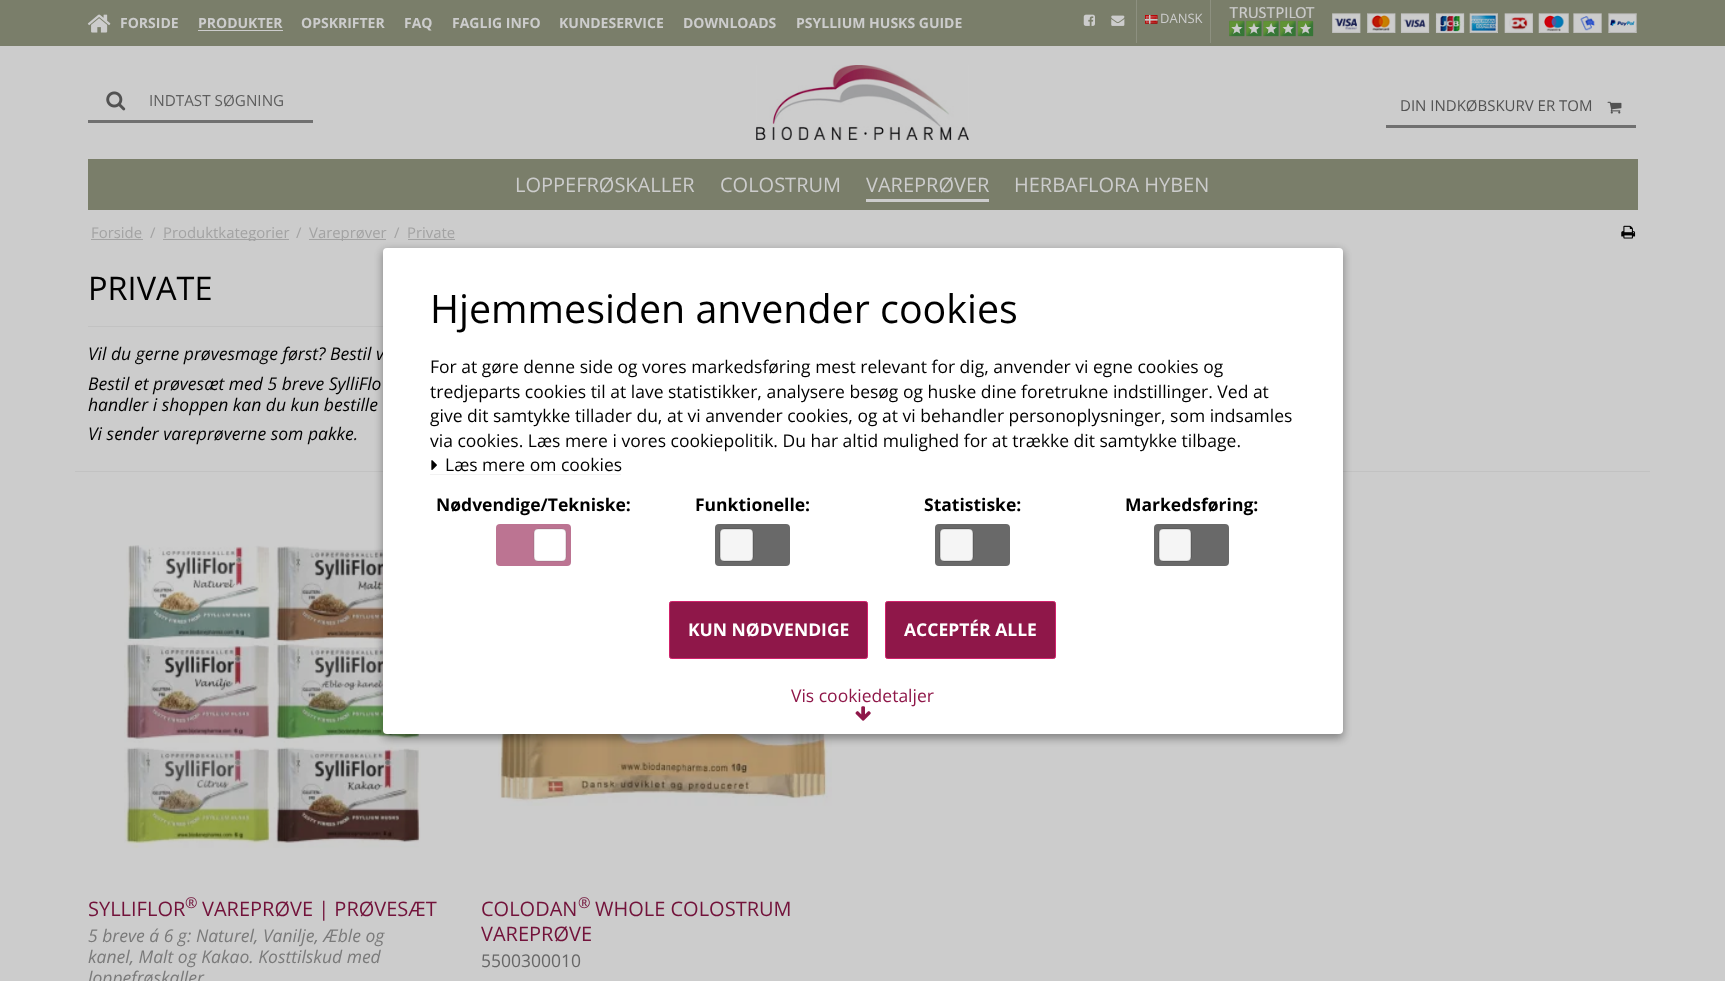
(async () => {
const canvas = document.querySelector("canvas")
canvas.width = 1725
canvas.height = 981
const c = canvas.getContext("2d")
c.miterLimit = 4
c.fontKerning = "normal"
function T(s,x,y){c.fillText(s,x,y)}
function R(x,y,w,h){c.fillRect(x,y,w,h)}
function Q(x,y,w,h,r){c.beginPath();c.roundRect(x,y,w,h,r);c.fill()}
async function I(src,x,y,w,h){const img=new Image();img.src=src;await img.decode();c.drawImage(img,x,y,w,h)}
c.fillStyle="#ccc"
R(0,0,1725,981)
c.fillStyle="#7a7e6a"
R(0,0,1725,46)
await I("1.png",87,14,24,19)
c.font="bold 14px Open Sans"
c.fillStyle="#ccc"
T("FORSIDE",120,28)
T("PRODUKTER",198,28)
R(198,30,85,1)
T("OPSKRIFTER",301,28)
T("FAQ",404,28)
T("FAGLIG INFO",452,28)
T("KUNDESERVICE",559,28)
T("DOWNLOADS",683,28)
T("PSYLLIUM HUSKS GUIDE",796,28)
await I("2.png",1083,14,12,12)
await I("3.png",1111,15,14,11)
c.fillStyle="#8d9080"
R(1210,0,1,43)
R(1136,0,1,43)
await I("4.png",1145,15,13,9)
c.font="13px Open Sans"
c.fillStyle="#ccc"
T("DANSK",1160,23)
await I("5.png",1229,7,86,30)
await I("6.png",1332,13,29,20)
await I("7.png",1367,13,29,20)
await I("8.png",1400,13,30,20)
await I("9.png",1435,13,30,20)
await I("10.png",1469,13,29,20)
await I("11.png",1504,13,29,20)
await I("12.png",1538,13,31,20)
await I("13.png",1573,13,29,20)
await I("14.png",1608,13,29,20)
c.fillStyle="#707070"
R(88,120,225,3)
await I("15.png",106,91,20,20)
c.font="15.25px Open Sans"
c.fillStyle="#5e5e5e"
T("INDTAST SØGNING",149,106)
await I("16.png",756,65,213,75)
c.fillStyle="#707070"
R(1386,125,250,3)
c.font="15px Open Sans"
c.fillStyle="#525252"
T("DIN INDKØBSKURV ER TOM",1400,111)
await I("17.png",1607,101,15,13)
c.fillStyle="#7a7e6a"
R(88,159,1550,51)
c.font="20px Open Sans"
c.fillStyle="#ccc"
T("LOPPEFRØSKALLER",515,192)
T("COLOSTRUM",720,192)
T("VAREPRØVER",866,192)
R(866,199,123,3)
T("HERBAFLORA HYBEN",1014,192)
c.font="14.9px Open Sans"
c.fillStyle="#a3a3a3"
T("Forside",91,238)
R(91,239,52,1)
T("/",150,238)
R(163,239,126,1)
T("Produktkategorier",163,238)
T("/",296,238)
R(309,239,77,1)
T("Vareprøver",309,238)
T("/",394,238)
T("Private",407,238)
R(408,239,47,1)
await I("18.png",1621,225,15,14)
c.fillStyle="#ccc"
R(249,241,94,1)
c.fillStyle="#c2c2c2"
R(75,471,1575,1)
R(88,326,295,1)
c.font="32.5px Open Sans"
c.fillStyle="#000"
T("PRIVATE",88,300)
c.font="italic 17.5px Open Sans"
T("Vil du gerne prøvesmage først? Bestil v",88,360)
T("Bestil et prøvesæt med 5 breve SylliFlo",88,390)
T("handler i shoppen kan du kun bestille",88,411)
T("Vi sender vareprøverne som pakke.",88,440)
await I("19.png",124,545,297,303)
c.font="20px Open Sans"
c.fillStyle="#72123a"
T("SYLLIFLOR",88,916)
c.font="15px Open Sans"
T("®",185,908)
c.font="20px Open Sans"
T("VAREPRØVE | PRØVESÆT",202,916)
c.font="italic 17.5px Open Sans"
c.fillStyle="#7a7a7a"
T("5 breve á 6 g: Naturel, Vanilje, Æble og",88,942)
T("kanel, Malt og Kakao. Kosttilskud med",88,963)
T("loppefrøskaller",88,984)
await I("20.png",498,734,334,72)
c.font="20px Open Sans"
c.fillStyle="#72123a"
T("COLODAN",481,916)
c.font="15px Open Sans"
T("®",578,908)
c.font="20px Open Sans"
T("WHOLE COLOSTRUM",595,916)
T("VAREPRØVE",481,941)
c.font="17.5px Open Sans"
c.fillStyle="#666"
T("5500300010",481,967)
c.fillStyle="#0000003b"
c.filter="blur(4px)"
c.beginPath()
c.roundRect(383,251,960,487,4)
c.fill()
c.filter="none"
c.fillStyle="#00000029"
c.filter="blur(4px)"
c.beginPath()
c.roundRect(383,251,960,487,4)
c.fill()
c.filter="none"
c.fillStyle="#fff"
Q(383,248,960,486,4)
c.font="39.4px Open Sans"
c.fillStyle="#000"
T("Hjemmesiden anvender cookies",430,323)
c.font="17.5px Open Sans"
T("For at gøre denne side og vores markedsføring mest relevant for dig, anvender vi egne cookies og",430,373)
T("tredjeparts cookies til at lave statistikker, analysere besøg og huske dine foretrukne indstillinger. Ved at",430,398)
T("give dit samtykke tillader du, at vi anvender cookies, og at vi behandler personoplysninger, som indsamles",430,422)
T("via cookies. Læs mere i vores cookiepolitik. Du har altid mulighed for at trække dit samtykke tilbage.",430,447)
c.fillStyle="#f2f2f2"
R(430,474,191,1)
await I("21.png",431,460,6,10)
c.fillStyle="#000"
T("Læs mere om cookies",445,471)
c.font="bold 17.5px Open Sans"
T("Nødvendige/Tekniske:",436,511)
c.fillStyle="#bc7492"
Q(496,524,75,42,4)
c.beginPath()
c.roundRect(534.1,529.1,31.8,31.8,3.9)
c.strokeStyle="#6d676a"
c.lineWidth=0.2
c.stroke()
c.fillStyle="#fff"
c.beginPath()
c.roundRect(534.1,529.1,31.8,31.8,3.9)
c.fill()
c.stroke()
c.fillStyle="#000"
T("Funktionelle:",695,511)
c.fillStyle="#696969"
Q(715,524,75,42,4)
c.beginPath()
c.roundRect(720.1,529.1,32.8,31.8,3.9)
c.strokeStyle="#1d1d1d"
c.stroke()
c.fillStyle="#f5f5f5"
c.beginPath()
c.roundRect(720.1,529.1,32.8,31.8,3.9)
c.fill()
c.stroke()
c.fillStyle="#000"
T("Statistiske:",924,511)
c.fillStyle="#696969"
Q(935,524,75,42,4)
c.beginPath()
c.roundRect(940.1,529.1,32.8,31.8,3.9)
c.stroke()
c.fillStyle="#f5f5f5"
c.beginPath()
c.roundRect(940.1,529.1,32.8,31.8,3.9)
c.fill()
c.stroke()
c.fillStyle="#000"
T("Markedsføring:",1125,511)
c.fillStyle="#696969"
Q(1154,524,75,42,4)
c.beginPath()
c.roundRect(1159.1,529.1,31.8,31.8,3.9)
c.stroke()
c.fillStyle="#f5f5f5"
c.beginPath()
c.roundRect(1159.1,529.1,31.8,31.8,3.9)
c.fill()
c.stroke()
c.fillStyle="#8f1749"
c.beginPath()
c.roundRect(669.5,601.5,198,57,2)
c.fill()
c.strokeStyle="#d1226b"
c.lineWidth=1
c.stroke()
c.fillStyle="#fff"
T("KUN NØDVENDIGE",688,636)
c.fillStyle="#8f1749"
c.beginPath()
c.roundRect(885.5,601.5,170,57,2)
c.fill()
c.stroke()
c.fillStyle="#fff"
T("ACCEPTÉR ALLE",904,636)
c.font="17.5px Open Sans"
c.fillStyle="#8f1749"
T("Vis cookiedetaljer",791,702)
await I("22.png",855,706,16,15)
})()
